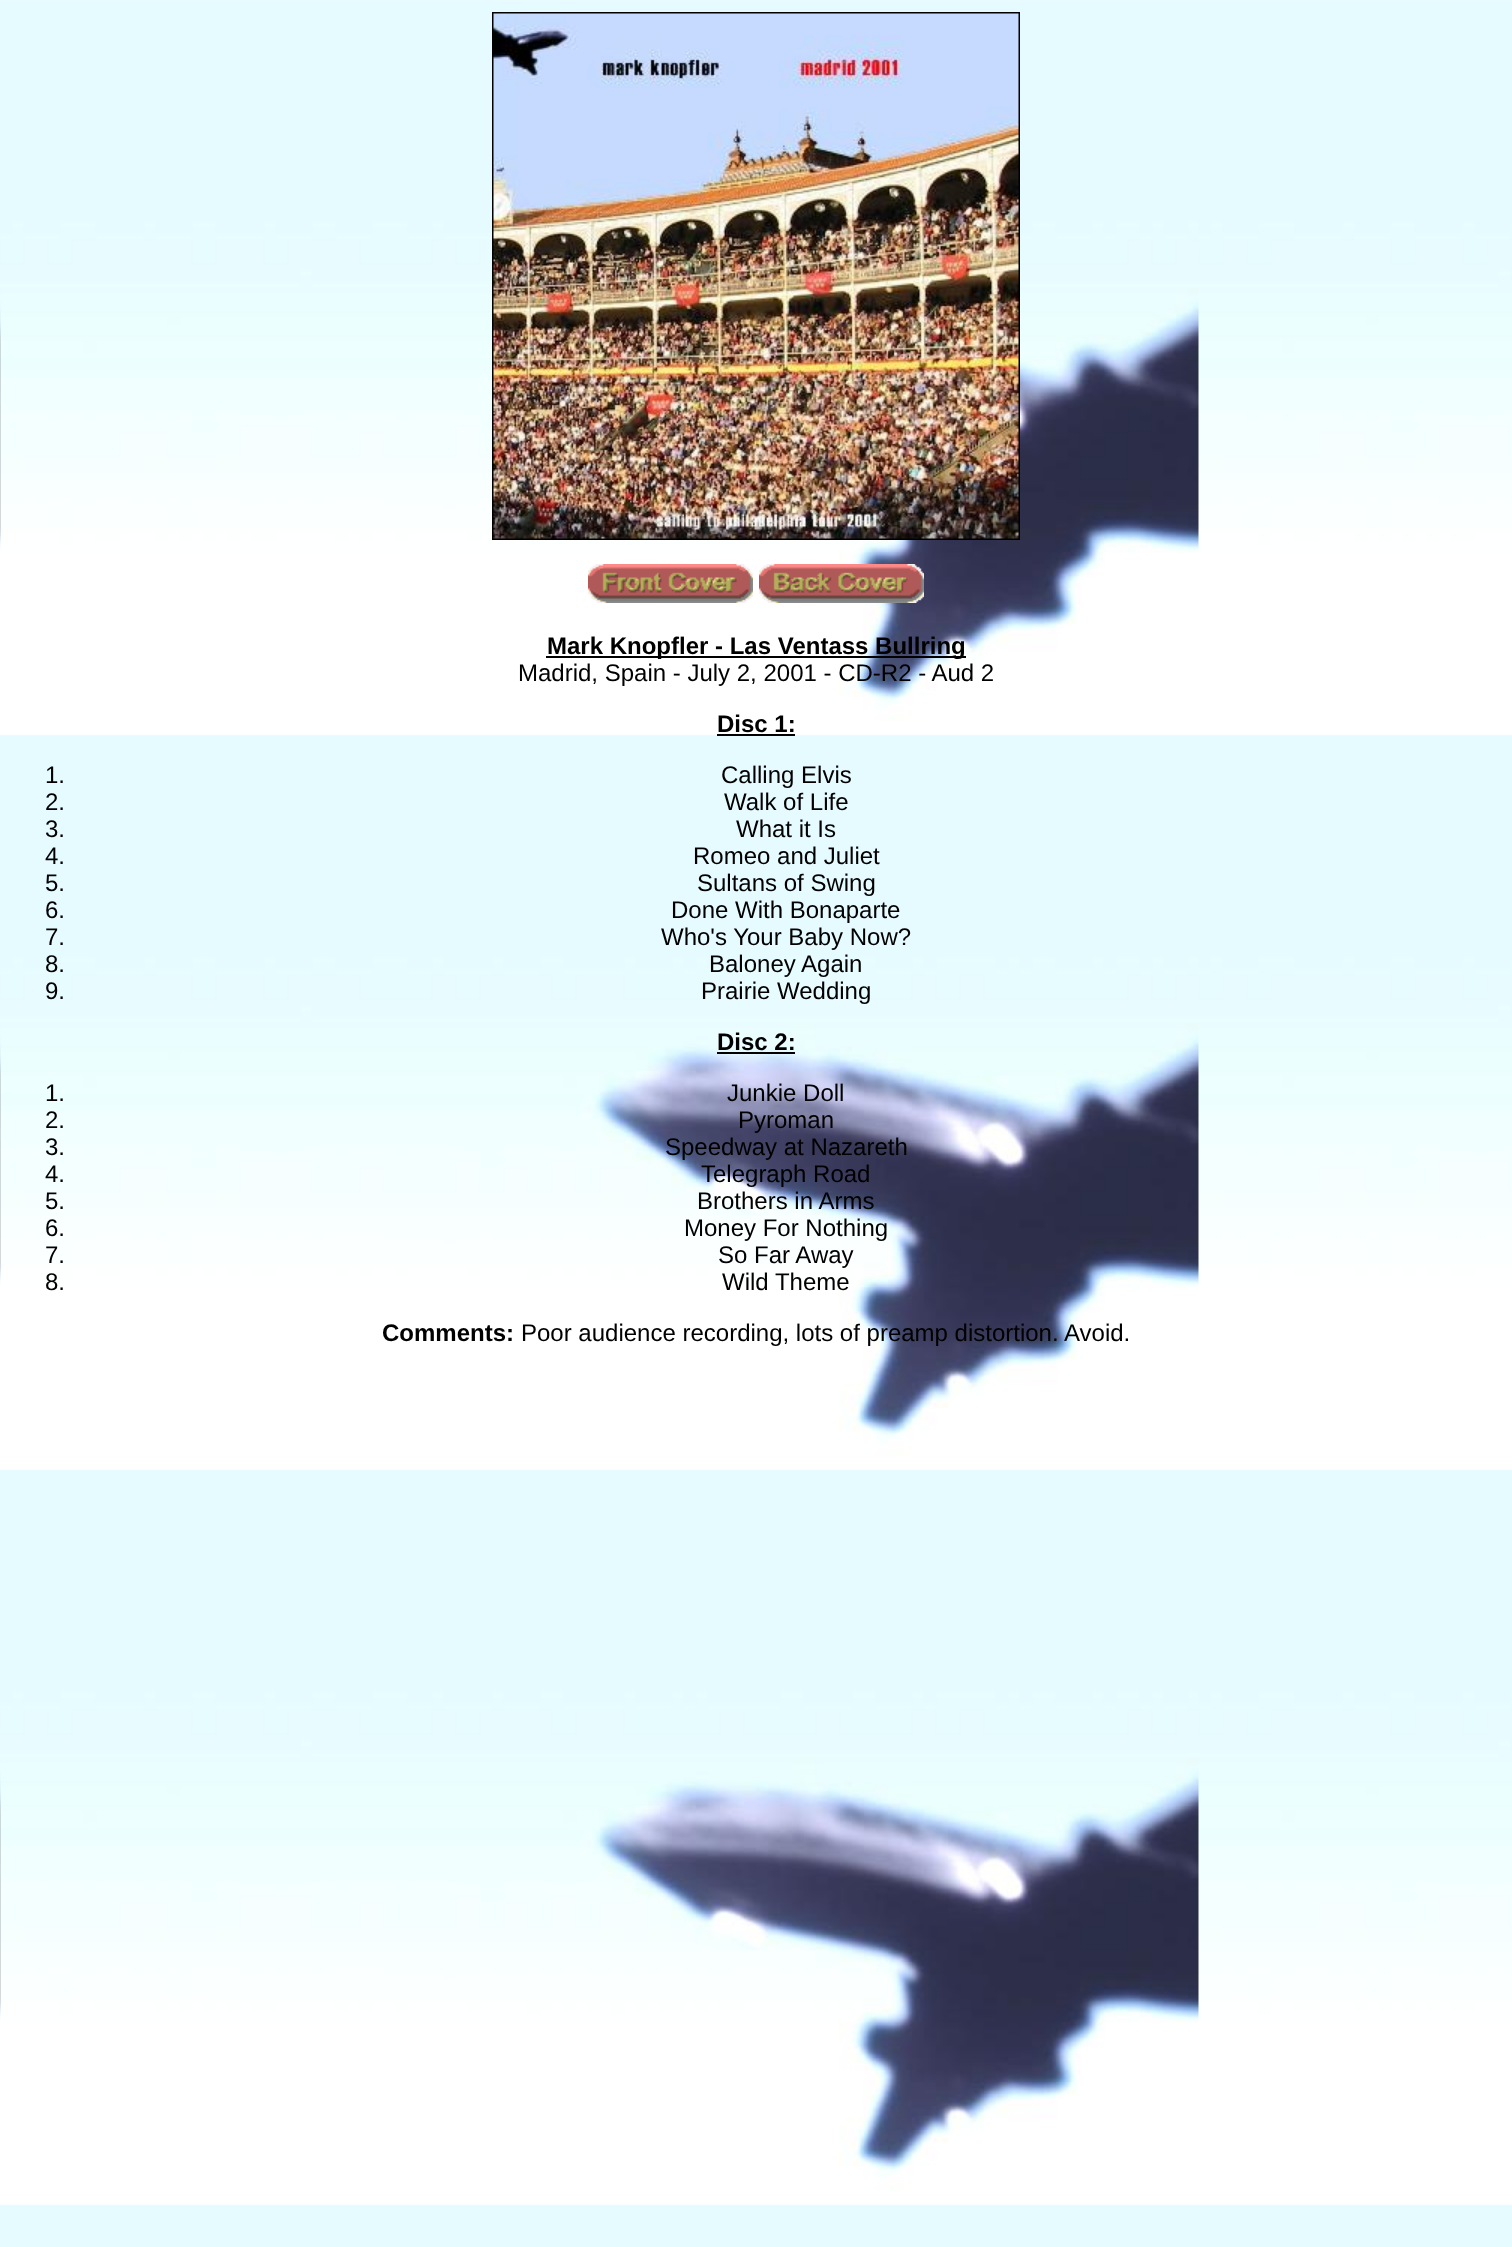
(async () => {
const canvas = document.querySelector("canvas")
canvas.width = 1512
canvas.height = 2247
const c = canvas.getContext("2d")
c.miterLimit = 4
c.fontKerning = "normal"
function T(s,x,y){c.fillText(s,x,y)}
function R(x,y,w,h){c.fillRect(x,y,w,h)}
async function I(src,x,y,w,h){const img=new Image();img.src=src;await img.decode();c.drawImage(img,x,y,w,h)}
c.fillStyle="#fff"
R(0,0,1512,2247)
await I("1.png",0,0,1512,2247)
c.strokeStyle="#000"
c.lineWidth=2
c.strokeRect(493,13,526,526)
await I("2.png",493,13,526,526)
await I("3.png",588,564,165,39)
await I("4.png",759,564,165,39)
c.fillStyle="#000"
R(546,656,420,2)
c.font="bold 24px Liberation Sans"
T("Mark Knopfler - Las Ventass Bullring",547,654)
c.font="24px Liberation Sans"
T("Madrid, Spain - July 2, 2001 - CD-R2 - Aud 2",518,681)
c.font="bold 24px Liberation Sans"
T("Disc 1:",717,732)
R(717,734,78,2)
c.font="24px Liberation Sans"
T("1.",45,783)
T("Calling Elvis",721,783)
T("2.",45,810)
T("Walk of Life",724,810)
T("3.",45,837)
T("What it Is",736,837)
T("4.",45,864)
T("Romeo and Juliet",693,864)
T("5.",45,891)
T("Sultans of Swing",697,891)
T("6.",45,918)
T("Done With Bonaparte",671,918)
T("7.",45,945)
T("Who's Your Baby Now?",661,945)
T("8.",45,972)
T("Baloney Again",709,972)
T("9.",45,999)
T("Prairie Wedding",701,999)
c.font="bold 24px Liberation Sans"
T("Disc 2:",717,1050)
R(717,1052,78,2)
c.font="24px Liberation Sans"
T("1.",45,1101)
T("Junkie Doll",727,1101)
T("2.",45,1128)
T("Pyroman",738,1128)
T("3.",45,1155)
T("Speedway at Nazareth",665,1155)
T("4.",45,1182)
T("Telegraph Road",701,1182)
T("5.",45,1209)
T("Brothers in Arms",697,1209)
T("6.",45,1236)
T("Money For Nothing",684,1236)
T("7.",45,1263)
T("So Far Away",718,1263)
T("8.",45,1290)
T("Wild Theme",722,1290)
c.font="bold 24px Liberation Sans"
T("Comments:",382,1341)
c.font="24px Liberation Sans"
T("Poor audience recording, lots of preamp distortion. Avoid.",521,1341)
})()
